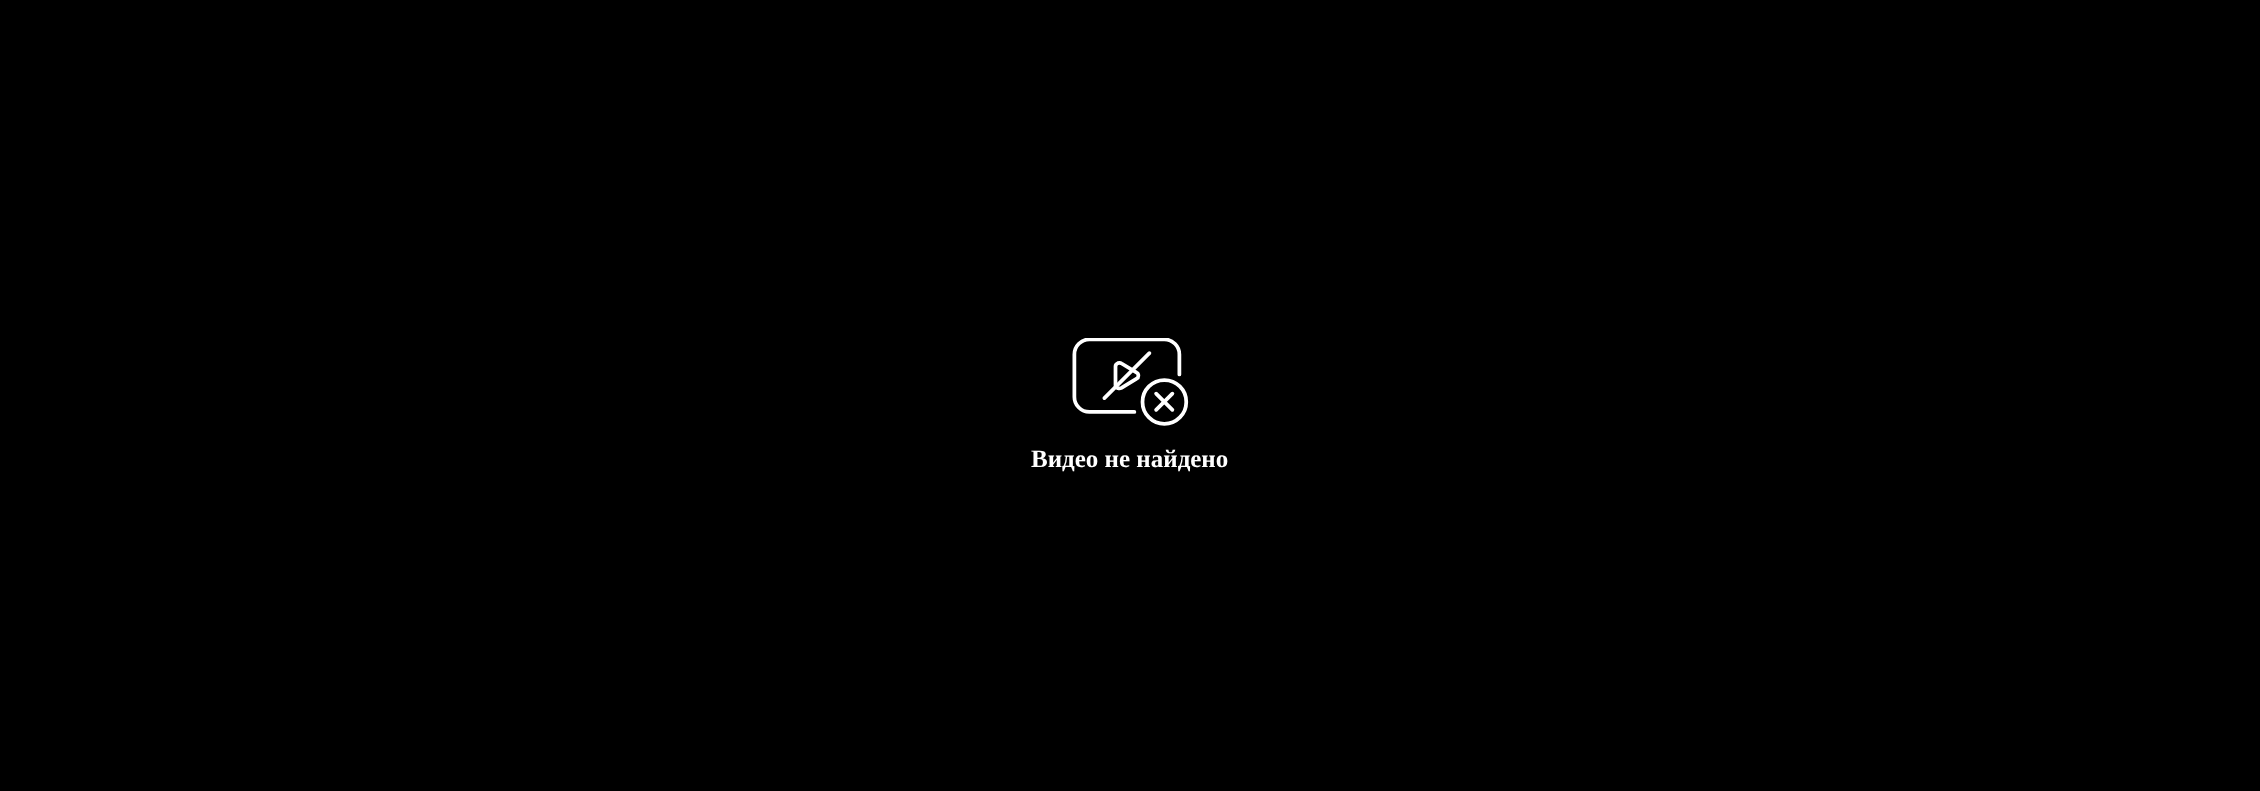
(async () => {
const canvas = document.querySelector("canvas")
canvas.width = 2260
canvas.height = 791
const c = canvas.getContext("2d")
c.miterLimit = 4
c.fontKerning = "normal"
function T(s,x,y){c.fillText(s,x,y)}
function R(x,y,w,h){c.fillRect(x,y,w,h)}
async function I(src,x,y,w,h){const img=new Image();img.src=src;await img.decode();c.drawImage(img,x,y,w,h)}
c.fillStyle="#000"
R(0,0,2260,791)
await I("1.png",1072,338,117,88)
c.font="bold 25px Liberation Serif"
c.fillStyle="#fff"
T("Видео не найдено",1031,467)
})()
